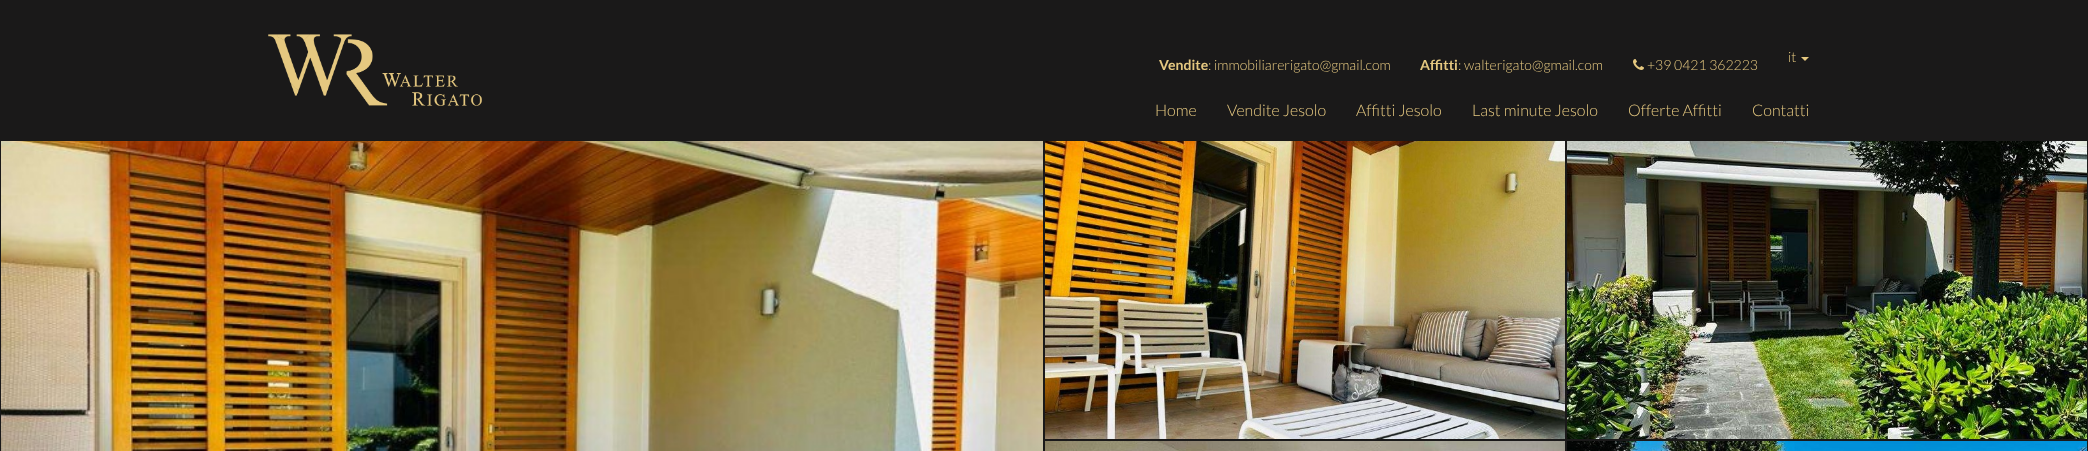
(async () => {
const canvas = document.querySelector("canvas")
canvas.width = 2088
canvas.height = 451
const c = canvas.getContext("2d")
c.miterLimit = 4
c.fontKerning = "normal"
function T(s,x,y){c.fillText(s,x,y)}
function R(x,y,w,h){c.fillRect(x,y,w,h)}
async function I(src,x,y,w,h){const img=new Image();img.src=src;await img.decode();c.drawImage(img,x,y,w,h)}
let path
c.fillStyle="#fff"
R(0,0,2088,451)
c.fillStyle="#1a1919"
R(0,0,2088,140)
await I("1.png",268,34,214,72)
c.font="300 14px Lato"
c.fillStyle="#e5c880"
T("it",1788,62)
path = new Path2D("M1801 57h8l-4 4z")
c.fill(path)
c.font="bold 14px Lato"
T("Vendite",1159,70)
c.font="300 14px Lato"
T(": immobiliarerigato@gmail.com",1208,70)
c.font="bold 14px Lato"
T("Affitti",1420,70)
c.font="300 14px Lato"
T(": walterigato@gmail.com",1458,70)
await I("2.png",1633,59,11,11)
T("+39 0421 362223",1647,70)
c.font="300 16px Lato"
T("Home",1155,116)
T("Vendite Jesolo",1227,116)
T("Affitti Jesolo",1356,116)
T("Last minute Jesolo",1472,116)
T("Offerte Affitti",1628,116)
T("Contatti",1752,116)
c.strokeStyle="#1a1919"
c.strokeRect(.5,140.5,1043,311)
await I("3.png",1,141,1042,310)
c.strokeRect(1044.5,140.5,521,299)
await I("4.png",1045,141,520,298)
c.strokeRect(1566.5,140.5,521,299)
await I("5.png",1567,141,520,298)
c.strokeRect(1044.5,440.5,521,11)
await I("6.png",1045,441,520,10)
c.strokeRect(1566.5,440.5,521,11)
await I("7.png",1567,441,520,10)
})()
